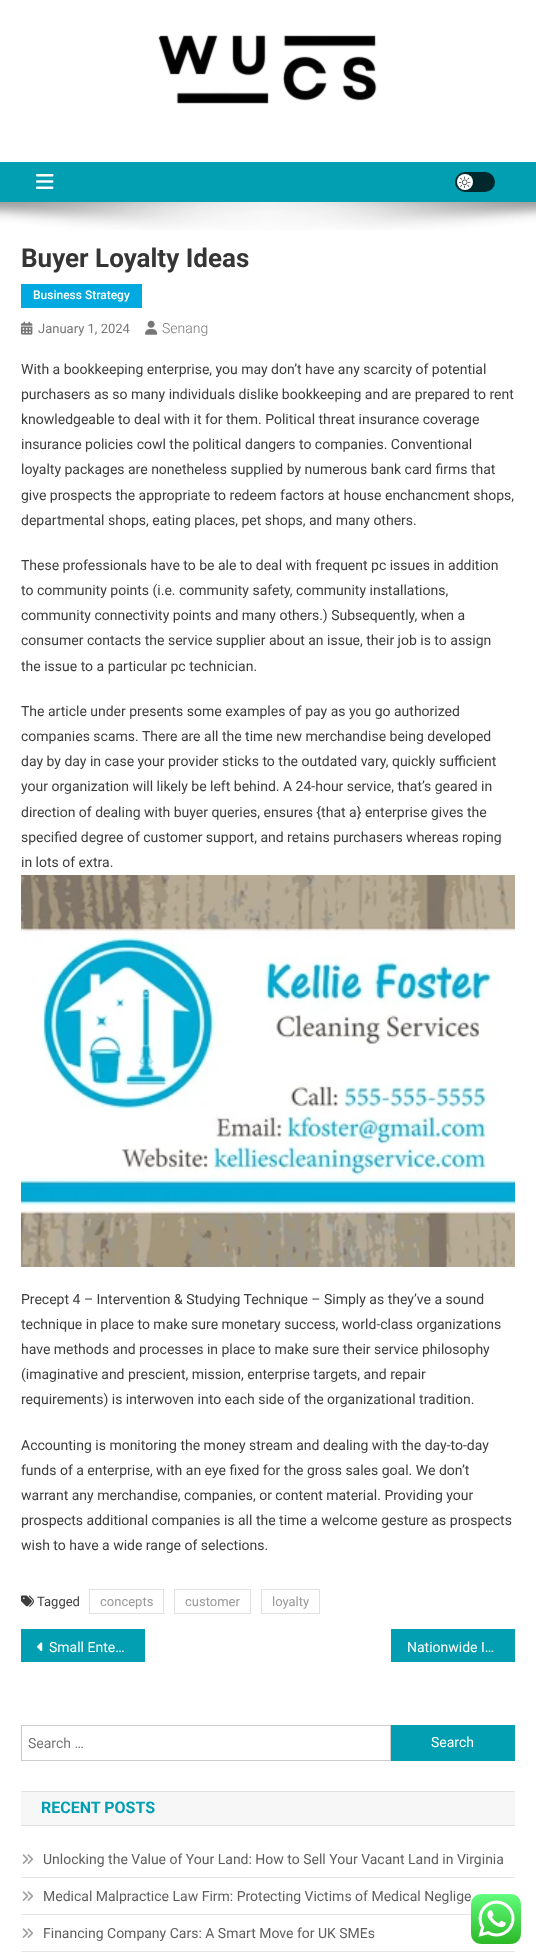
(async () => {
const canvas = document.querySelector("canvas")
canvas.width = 536
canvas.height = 1959
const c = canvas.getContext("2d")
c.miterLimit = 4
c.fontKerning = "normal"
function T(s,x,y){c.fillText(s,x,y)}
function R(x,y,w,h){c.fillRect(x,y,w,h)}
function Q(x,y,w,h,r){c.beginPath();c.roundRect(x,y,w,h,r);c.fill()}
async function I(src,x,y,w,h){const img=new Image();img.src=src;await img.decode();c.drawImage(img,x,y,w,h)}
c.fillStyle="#fff"
R(0,0,536,1959)
await I("1.png",158,34,219,70)
c.fillStyle="#029fb2"
R(0,162,536,40)
await I("2.png",36,174,18,15)
c.fillStyle="#01282d"
Q(455,172,40,20,10)
c.fillStyle="#fff"
c.beginPath()
c.arc(465,182,8,0,7)
c.fill()
await I("3.png",459,176,12,12)
await I("4.png",0,202,536,28)
c.font="bold 26px Roboto"
c.fillStyle="#353535"
T("Buyer Loyalty Ideas",21,267)
c.fillStyle="#00a9e0"
R(21,284,121,24)
c.font="500 12px Roboto"
c.fillStyle="#fff"
T("Business Strategy",33,299)
await I("5.png",21,321,12,14)
c.font="13px Roboto"
c.fillStyle="#767676"
T("January 1, 2024",38,333)
await I("6.png",145,320,13,15)
c.font="300 14px Roboto"
T("Senang",162,333)
c.font="14px Roboto"
c.fillStyle="#3d3d3d"
T("With a bookkeeping enterprise, you may don’t have any scarcity of potential",21,374)
T("purchasers as so many individuals dislike bookkeeping and are prepared to rent",21,399)
T("knowledgeable to deal with it for them. Political threat insurance coverage",21,424)
T("insurance policies cowl the political dangers to companies. Conventional",21,449)
T("loyalty packages are nonetheless supplied by numerous bank card firms that",21,474)
T("give prospects the appropriate to redeem factors at house enchancment shops,",21,500)
T("departmental shops, eating places, pet shops, and many others.",21,525)
T("These professionals have to be ale to deal with frequent pc issues in addition",21,570)
T("to community points (i.e. community safety, community installations,",21,595)
T("community connectivity points and many others.) Subsequently, when a",21,620)
T("consumer contacts the service supplier about an issue, their job is to assign",21,645)
T("the issue to a particular pc technician.",21,671)
T("The article under presents some examples of pay as you go authorized",21,716)
T("companies scams. There are all the time new merchandise being developed",21,741)
T("day by day in case your provider sticks to the outdated vary, quickly sufficient",21,766)
T("your organization will likely be left behind. A 24-hour service, that’s geared in",21,791)
T("direction of dealing with buyer queries, ensures {that a} enterprise gives the",21,817)
T("specified degree of customer support, and retains purchasers whereas roping",21,842)
T("in lots of extra.",21,867)
await I("7.png",21,875,494,392)
T("Precept 4 – Intervention & Studying Technique – Simply as they’ve a sound",21,1304)
T("technique in place to make sure monetary success, world-class organizations",21,1329)
T("have methods and processes in place to make sure their service philosophy",21,1354)
T("(imaginative and prescient, mission, enterprise targets, and repair",21,1379)
T("requirements) is interwoven into each side of the organizational tradition.",21,1404)
T("Accounting is monitoring the money stream and dealing with the day-to-day",21,1450)
T("funds of a enterprise, with an eye fixed for the gross sales goal. We don’t",21,1475)
T("warrant any merchandise, companies, or content material. Providing your",21,1500)
T("prospects additional companies is all the time a welcome gesture as prospects",21,1525)
T("wish to have a wide range of selections.",21,1550)
await I("8.png",21,1595,13,12)
c.font="13px Roboto"
T("Tagged",37,1606)
c.strokeStyle="#e1e1e1"
c.strokeRect(89.5,1589.5,74,24)
c.fillStyle="#999"
T("concepts",100,1606)
c.strokeRect(174.5,1589.5,76,24)
T("customer",185,1606)
c.strokeRect(261.5,1589.5,58,24)
T("loyalty",272,1606)
c.fillStyle="#029fb2"
R(21,1629,124,33)
await I("9.png",37,1642,6,10)
c.font="14px Roboto"
c.fillStyle="#fff"
T("Small Ente…",49,1652)
c.fillStyle="#029fb2"
R(391,1629,124,33)
c.fillStyle="#fff"
T("Nationwide I…",407,1652)
c.strokeStyle="#ccc"
c.strokeRect(21.5,1725.5,369,35)
c.fillStyle="#767676"
T("Search …",28,1748)
c.fillStyle="#029fb2"
R(391,1725,124,36)
c.fillStyle="#fff"
T("Search",431,1747)
c.fillStyle="#f7f7f7"
R(21,1792,494,33)
c.fillStyle="#e1e1e1"
R(21,1791,494,1)
R(21,1825,494,1)
c.font="bold 16px Roboto"
c.fillStyle="#029fb2"
T("RECENT POSTS",41,1813)
c.fillStyle="#e6e6e6"
R(21,1877,494,1)
await I("10.png",22,1854,12,10)
c.font="14px Roboto"
c.fillStyle="#5f5f5f"
T("Unlocking the Value of Your Land: How to Sell Your Vacant Land in Virginia",43,1864)
c.fillStyle="#e6e6e6"
R(21,1914,450,1)
await I("10.png",22,1891,12,10)
c.fillStyle="#5f5f5f"
T("Medical Malpractice Law Firm: Protecting Victims of Medical Neglige",43,1901)
c.fillStyle="#e6e6e6"
R(21,1951,494,1)
await I("10.png",22,1928,12,10)
c.fillStyle="#5f5f5f"
T("Financing Company Cars: A Smart Move for UK SMEs",43,1938)
await I("11.png",471,1894,50,50)
})()
